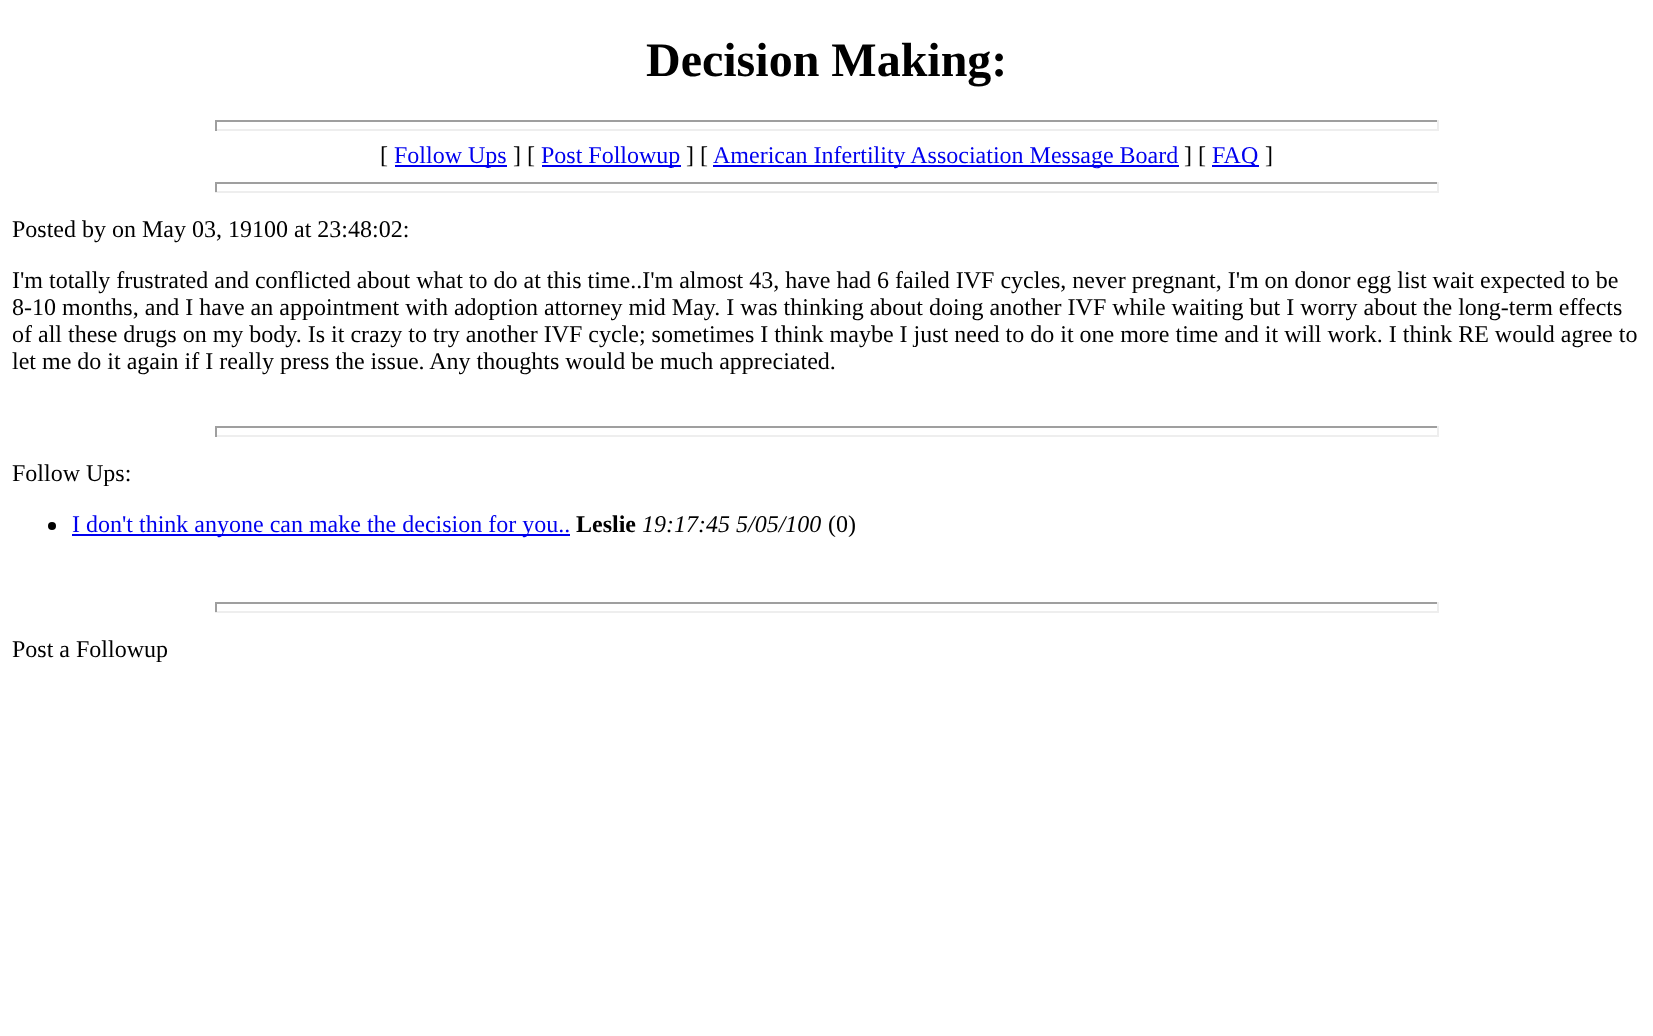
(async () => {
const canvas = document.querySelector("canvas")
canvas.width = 1653
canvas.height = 1036
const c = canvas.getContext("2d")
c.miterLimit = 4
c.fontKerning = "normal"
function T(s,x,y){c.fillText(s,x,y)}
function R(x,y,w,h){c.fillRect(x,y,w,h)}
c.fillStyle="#fff"
R(0,0,1653,1036)
c.font="bold 48px Liberation Serif"
c.fillStyle="#000"
T("Decision Making:",646,76)
c.fillStyle="#9f9f9f"
R(215,120,1224,2)
c.fillStyle="#eee"
R(1437,120,2,11)
R(215,129,1224,2)
c.fillStyle="#9f9f9f"
R(215,120,2,11)
c.font="24px Liberation Serif"
c.fillStyle="#000"
T("[",380,163)
c.fillStyle="#00e"
R(395,165,112,2)
T("Follow Ups",394,163)
c.fillStyle="#000"
T("] [",513,163)
c.fillStyle="#00e"
R(542,165,139,2)
T("Post Followup",541,163)
c.fillStyle="#000"
T("] [",686,163)
c.fillStyle="#00e"
R(713,165,466,2)
T("American Infertility Association Message Board",713,163)
c.fillStyle="#000"
T("] [",1184,163)
c.fillStyle="#00e"
R(1212,165,47,2)
T("FAQ",1212,163)
c.fillStyle="#000"
T("]",1265,163)
c.fillStyle="#9f9f9f"
R(215,182,1224,2)
c.fillStyle="#eee"
R(1437,182,2,10)
R(215,191,1224,2)
c.fillStyle="#9f9f9f"
R(215,182,2,10)
c.fillStyle="#000"
T("Posted by on May 03, 19100 at 23:48:02:",12,237)
T("I'm totally frustrated and conflicted about what to do at this time..I'm almost 43, have had 6 failed IVF cycles, never pregnant, I'm on donor egg list wait expected to be",12,288)
T("8-10 months, and I have an appointment with adoption attorney mid May. I was thinking about doing another IVF while waiting but I worry about the long-term effects",12,315)
T("of all these drugs on my body. Is it crazy to try another IVF cycle; sometimes I think maybe I just need to do it one more time and it will work. I think RE would agree to",12,342)
T("let me do it again if I really press the issue. Any thoughts would be much appreciated.",12,369)
c.fillStyle="#9f9f9f"
R(215,426,1224,2)
c.fillStyle="#eee"
R(1437,426,2,11)
R(215,435,1224,2)
c.fillStyle="#9f9f9f"
R(215,426,2,11)
c.fillStyle="#000"
T("Follow Ups:",12,481)
c.beginPath()
c.arc(52,526,4,0,7)
c.fill()
c.fillStyle="#00e"
R(72,534,498,2)
T("I don't think anyone can make the decision for you..",72,532)
c.font="bold 24px Liberation Serif"
c.fillStyle="#000"
T("Leslie",576,532)
c.font="italic 24px Liberation Serif"
T("19:17:45 5/05/100",642,532)
c.font="24px Liberation Serif"
T("(0)",828,532)
c.fillStyle="#9f9f9f"
R(215,602,1224,2)
c.fillStyle="#eee"
R(1437,602,2,10)
R(215,611,1224,2)
c.fillStyle="#9f9f9f"
R(215,602,2,10)
c.fillStyle="#000"
T("Post a Followup",12,657)
})()
